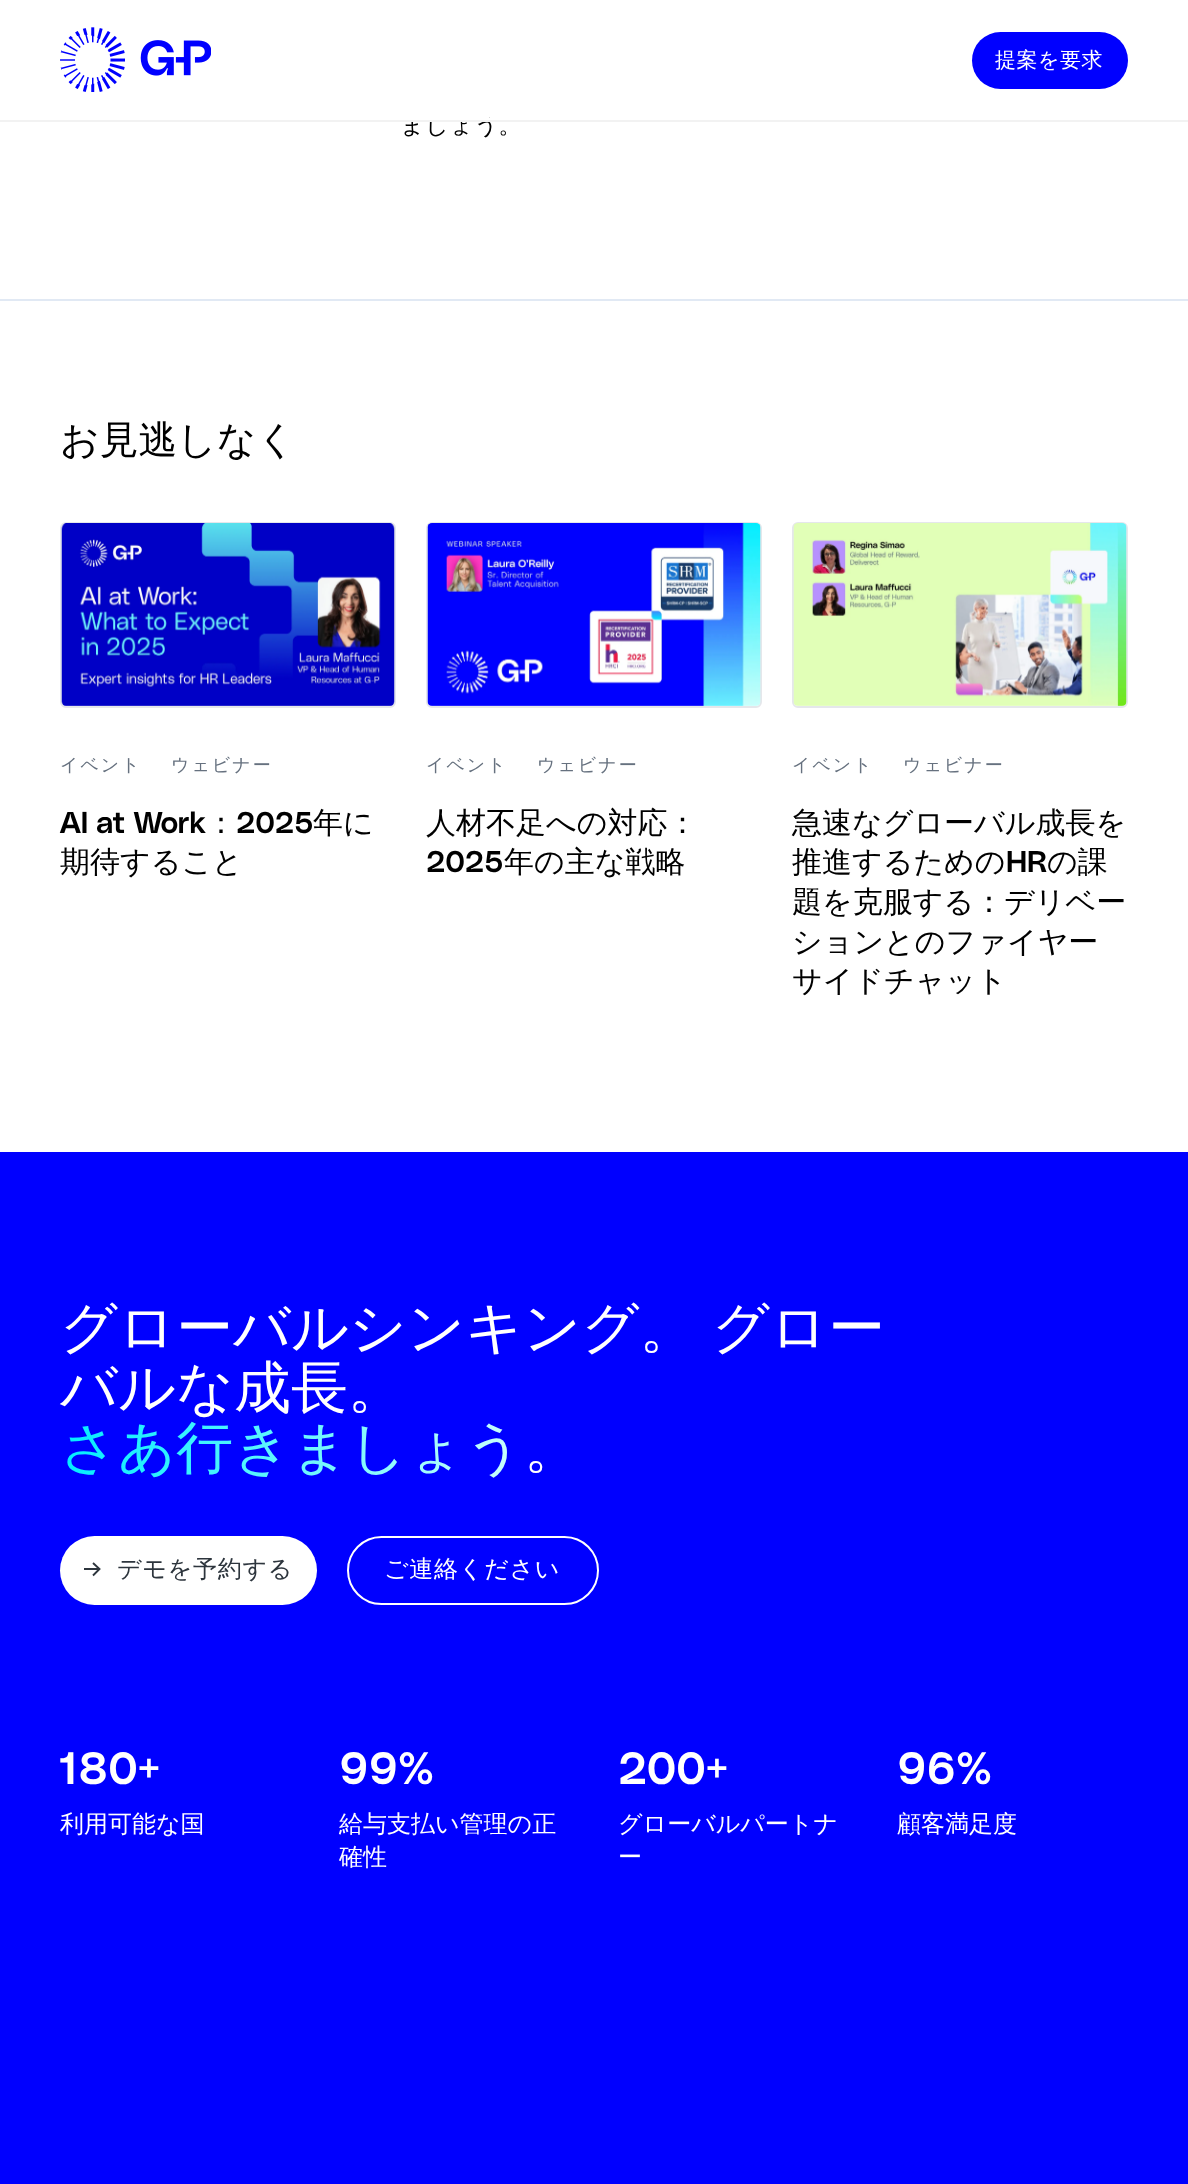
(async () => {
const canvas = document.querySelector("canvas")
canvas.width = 1188
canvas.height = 2184
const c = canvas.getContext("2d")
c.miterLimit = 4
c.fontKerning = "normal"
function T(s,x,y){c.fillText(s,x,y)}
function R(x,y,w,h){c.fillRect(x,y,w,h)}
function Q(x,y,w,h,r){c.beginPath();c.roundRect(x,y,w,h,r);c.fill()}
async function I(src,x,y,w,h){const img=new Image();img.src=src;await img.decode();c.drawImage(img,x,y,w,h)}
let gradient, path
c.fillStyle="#fff"
R(0,0,1188,2184)
c.font="500 24px WenQuanYi Zen Hei"
c.fillStyle="#000"
T("ましょう。",400,133)
c.fillStyle="#fff"
R(404,114,85,6)
c.fillStyle="#f2f2f2"
R(0,120,1188,2)
await I("1.png",60,27,151,65)
c.fillStyle="#00f"
Q(972,32,156,57,28.5)
c.letterSpacing="0.5px"
c.font="500 21px WenQuanYi Zen Hei"
c.fillStyle="#fff"
T("提案を要求",995,67)
c.fillStyle="#e1e9f4"
R(0,299,1188,2)
c.letterSpacing="0px"
c.font="500 38.75px WenQuanYi Zen Hei"
c.fillStyle="#000"
T("お見逃しなく",60,453)
c.beginPath()
c.roundRect(61,523,334,184,5)
c.strokeStyle="#e5e7eb"
c.lineWidth=2
c.stroke()
await I("2.png",61,523,334,183)
c.letterSpacing="2px"
c.font="500 18px WenQuanYi Zen Hei"
c.fillStyle="#66717f"
T("イベント",60,771)
T("ウェビナー",171,771)
c.letterSpacing="0px"
c.font="600 30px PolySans"
c.fillStyle="#000"
T("AI at Work",60,833)
c.font="500 30px WenQuanYi Zen Hei"
T("：",206,833)
c.font="600 30px PolySans"
T("2025",236,833)
c.font="500 30px WenQuanYi Zen Hei"
T("年に",313,833)
T("期待すること",60,872)
c.beginPath()
c.roundRect(427,523,334,184,5)
c.stroke()
await I("3.png",427,523,334,183)
c.letterSpacing="2px"
c.font="500 18px WenQuanYi Zen Hei"
c.fillStyle="#66717f"
T("イベント",426,771)
T("ウェビナー",537,771)
c.letterSpacing="0px"
c.font="500 30px WenQuanYi Zen Hei"
c.fillStyle="#000"
T("人材不足への対応：",426,833)
c.font="600 30px PolySans"
T("2025",426,872)
c.font="500 30px WenQuanYi Zen Hei"
T("年の主な戦略",504,872)
c.beginPath()
c.roundRect(793,523,334,184,5)
c.stroke()
await I("4.png",793,523,334,183)
c.letterSpacing="2px"
c.font="500 18px WenQuanYi Zen Hei"
c.fillStyle="#66717f"
T("イベント",792,771)
T("ウェビナー",903,771)
c.letterSpacing="0px"
c.font="500 30px WenQuanYi Zen Hei"
c.fillStyle="#000"
T("急速なグローバル成長を",792,833)
T("推進するための",792,872)
c.font="600 30px PolySans"
T("HR",1006,872)
c.font="500 30px WenQuanYi Zen Hei"
T("の課",1047,872)
T("題を克服する：デリベー",792,912)
T("ションとのファイヤー",792,952)
T("サイドチャット",792,991)
c.fillStyle="#00f"
R(0,1152,1188,1032)
c.font="500 56.75px WenQuanYi Zen Hei"
c.fillStyle="#fff"
T("グローバルシンキング。",60,1347)
T("グロー",712,1347)
T("バルな成長。",60,1407)
gradient = c.createLinearGradient(60,1452,524,1452)
gradient.addColorStop(0,"#00edff")
gradient.addColorStop(1,"#cdfffb")
c.fillStyle = gradient
T("さあ行きましょう",60,1467)
c.fillStyle="#fff"
T("。",524,1467)
Q(60,1536,257,69,34.5)
path = new Path2D("M84 1569h15.5m-6.5-6l6.5 6l-6.5 6.5")
c.strokeStyle="#2d353d"
c.lineWidth=1.9
c.stroke(path)
c.letterSpacing="0.75px"
c.font="500 24px WenQuanYi Zen Hei"
c.fillStyle="#2d353d"
T("デモを予約する",117,1577)
c.beginPath()
c.roundRect(348,1537,250,67,33.5)
c.strokeStyle="#fff"
c.lineWidth=2
c.stroke()
c.fillStyle="#fff"
T("ご連絡ください",384,1577)
c.letterSpacing="0px"
c.font="600 45px PolySans"
T("180+",60,1784)
c.font="500 24px WenQuanYi Zen Hei"
T("利用可能な国",60,1832)
c.font="600 45px PolySans"
T("99%",339,1784)
c.font="500 24px WenQuanYi Zen Hei"
T("給与支払い管理の正",339,1832)
T("確性",339,1865)
c.font="600 45px PolySans"
T("200+",618,1784)
c.font="500 24px WenQuanYi Zen Hei"
T("グローバルパートナ",618,1832)
T("ー",618,1865)
c.font="600 45px PolySans"
T("96%",897,1784)
c.font="500 24px WenQuanYi Zen Hei"
T("顧客満足度",897,1832)
})()
